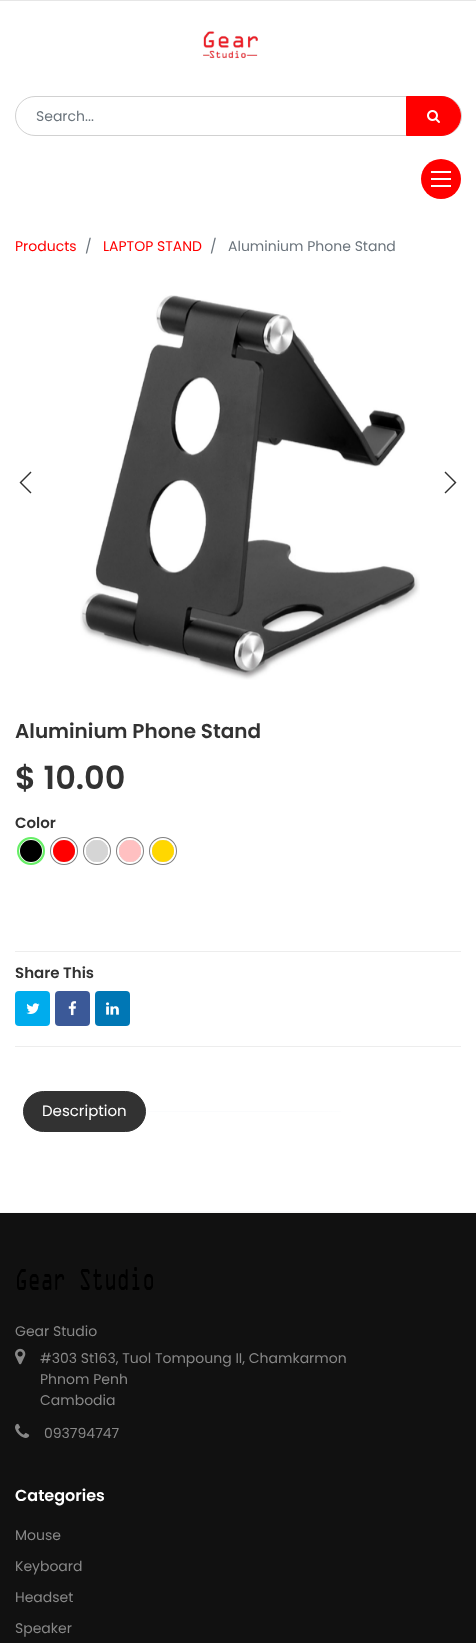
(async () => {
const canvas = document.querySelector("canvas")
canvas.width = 476
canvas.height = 1643
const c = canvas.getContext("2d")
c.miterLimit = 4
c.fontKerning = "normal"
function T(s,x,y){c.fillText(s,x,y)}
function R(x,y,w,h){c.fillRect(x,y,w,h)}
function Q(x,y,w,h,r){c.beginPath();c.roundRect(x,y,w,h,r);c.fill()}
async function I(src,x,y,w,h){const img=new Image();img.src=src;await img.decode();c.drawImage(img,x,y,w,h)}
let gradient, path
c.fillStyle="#fff"
R(0,0,476,1643)
c.fillStyle="#e6e6e6"
R(0,0,476,1)
await I("1.png",203,31,55,28)
c.beginPath()
c.roundRect(15.5,96.5,446,39,19.5)
c.strokeStyle="#d1d1d1"
c.stroke()
c.font="14px Poppins"
c.fillStyle="#6c757d"
T("Search...",36,121)
c.fillStyle="#f00"
c.beginPath()
c.roundRect(406.5,96.5,54,39,[0,19.5,19.5,0])
c.fill()
c.strokeStyle="#f00"
c.stroke()
await I("2.png",427,110,13,13)
c.beginPath()
c.arc(441,179,20,0,7)
c.fill()
c.fillStyle="#fff"
R(431,171,20,2)
R(431,178,20,2)
R(431,185,20,2)
c.fillStyle="#f00"
T("Products",15,251)
c.fillStyle="#6c757d"
T("/",85,251)
c.fillStyle="#f00"
T("LAPTOP STAND",103,251)
c.fillStyle="#6c757d"
T("/",210,251)
T("Aluminium Phone Stand",228,251)
c.fillStyle="#323232"
path = new Path2D("M21.5 482.5l10 10l-1 1l-11-11l11-11l1 1z")
c.fill(path)
await I("3.png",80,295,340,385)
path = new Path2D("M456.5 482.5l-11 11l-1-1l10-10l-10-10l1-1z")
c.fill(path)
c.font="600 20px Poppins"
T("Aluminium Phone Stand",15,738)
c.font="600 32px Poppins"
T("$ 10.00",15,789)
c.font="600 15px Poppins"
T("Color",15,828)
c.beginPath()
c.arc(31,851,12.5,0,7)
c.strokeStyle="#6e6"
c.lineWidth=3
c.stroke()
c.beginPath()
c.arc(31,851,11.5,0,7)
c.strokeStyle="#fff"
c.lineWidth=1
c.stroke()
c.fillStyle="#000"
c.beginPath()
c.arc(31,851,11,0,7)
c.fill()
c.beginPath()
c.arc(64,851,12.5,0,7)
c.strokeStyle="#808080"
c.lineWidth=3
c.stroke()
c.beginPath()
c.arc(64,851,12,0,7)
c.strokeStyle="#fff"
c.lineWidth=2
c.stroke()
c.fillStyle="#f00"
c.beginPath()
c.arc(64,851,11,0,7)
c.fill()
c.beginPath()
c.arc(97,851,12.5,0,7)
c.strokeStyle="#808080"
c.lineWidth=3
c.stroke()
c.beginPath()
c.arc(97,851,12,0,7)
c.strokeStyle="#fff"
c.lineWidth=2
c.stroke()
c.fillStyle="#d5d5d5"
c.beginPath()
c.arc(97,851,11,0,7)
c.fill()
c.beginPath()
c.arc(130,851,12.5,0,7)
c.strokeStyle="#808080"
c.lineWidth=3
c.stroke()
c.beginPath()
c.arc(130,851,12,0,7)
c.strokeStyle="#fff"
c.lineWidth=2
c.stroke()
c.fillStyle="#ffc0c1"
c.beginPath()
c.arc(130,851,11,0,7)
c.fill()
c.beginPath()
c.arc(163,851,12.5,0,7)
c.strokeStyle="#808080"
c.lineWidth=3
c.stroke()
c.beginPath()
c.arc(163,851,12,0,7)
c.strokeStyle="#fff"
c.lineWidth=2
c.stroke()
c.fillStyle="#ffd700"
c.beginPath()
c.arc(163,851,11,0,7)
c.fill()
c.fillStyle="#ededed"
R(15,951,446,1)
c.fillStyle="#323232"
T("Share This",15,978)
c.fillStyle="#00aced"
Q(15,991,35,35,4)
await I("4.png",26,1003,14,11)
c.fillStyle="#3b5998"
Q(55,991,35,35,4)
await I("5.png",68,1001,9,15)
c.fillStyle="#0077b5"
Q(95,991,35,35,4)
await I("6.png",106,1002,13,13)
c.fillStyle="#ededed"
R(15,1046,446,1)
gradient = c.createRadialGradient(238,500400,0,238,500400,315)
gradient.addColorStop(0,"#dee4ef")
gradient.addColorStop(.85,"#fff")
c.fillStyle = gradient
c.beginPath()
c.rect(135,1111,206,1)
c.save()
c.clip()
c.scale(1,0.7 / 315)
c.fillRect(0,0,476,739350)
c.restore()
c.fillStyle="#323232"
c.beginPath()
c.roundRect(23.5,1091.5,122,40,20)
c.fill()
c.strokeStyle="#323232"
c.lineWidth=1
c.stroke()
c.font="15px Poppins"
c.fillStyle="#fff"
T("Description",42,1116)
gradient = c.createRadialGradient(238,583491.43,0,238,583491.43,337)
gradient.addColorStop(0,"#dee4ef")
gradient.addColorStop(.85,"#fff")
c.fillStyle = gradient
c.beginPath()
c.rect(128,1211,220,1)
c.save()
c.clip()
c.scale(1,0.7 / 337)
c.fillRect(0,0,476,790988)
c.restore()
c.fillStyle="#f9f9f9"
R(0,1212,476,1)
c.fillStyle="#111"
R(0,1213,476,430)
await I("7.png",17,1267,136,23)
c.font="14px Poppins"
c.fillStyle="#888"
T("Gear Studio",15,1336)
await I("8.png",15,1348,11,17)
T("#303 St163, Tuol Tompoung II, Chamkarmon",40,1363)
T("Phnom Penh",40,1384)
T("Cambodia",40,1405)
await I("9.png",15,1423,15,15)
T("093794747",44,1438)
c.font="600 16px Poppins"
c.fillStyle="#fff"
T("Categories",15,1501)
c.font="14px Poppins"
c.fillStyle="#888"
T("Mouse",15,1540)
T("Keyboard",15,1571)
T("Headset",15,1602)
T("Speaker",15,1633)
})()
